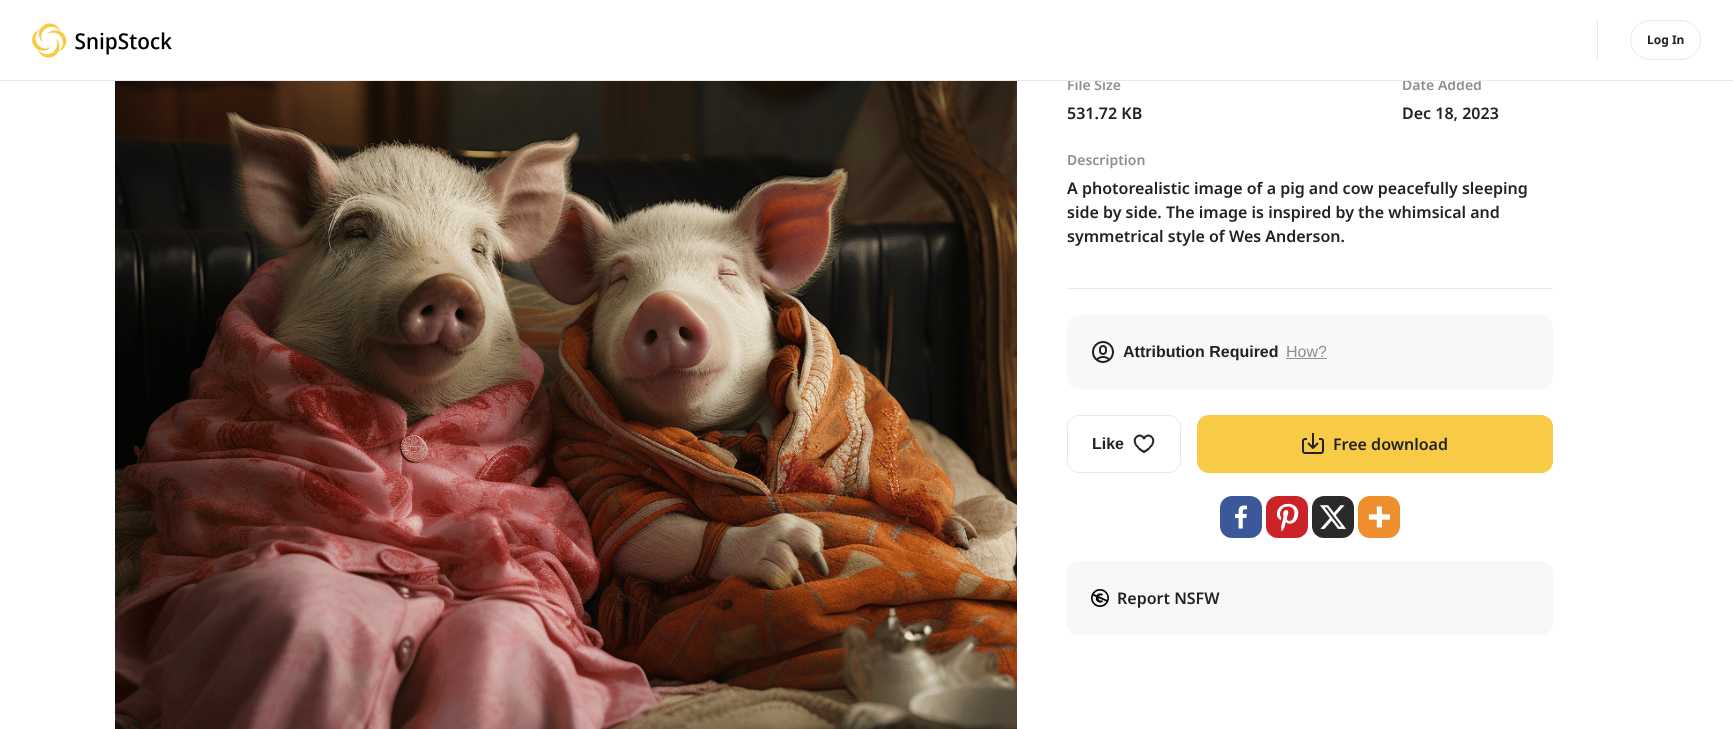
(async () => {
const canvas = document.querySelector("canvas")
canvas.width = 1733
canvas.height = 729
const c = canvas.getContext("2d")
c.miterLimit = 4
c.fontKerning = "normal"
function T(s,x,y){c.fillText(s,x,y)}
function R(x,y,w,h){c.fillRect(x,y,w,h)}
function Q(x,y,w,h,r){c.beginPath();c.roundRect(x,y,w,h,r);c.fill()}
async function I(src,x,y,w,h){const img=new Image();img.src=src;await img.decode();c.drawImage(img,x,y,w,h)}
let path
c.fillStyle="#fff"
R(0,0,1733,729)
c.font="600 14px Noto Sans"
c.fillStyle="#909090"
T("File Size",1067,90)
T("Date Added",1402,90)
c.fillStyle="#fff"
R(1075,79,406,1)
c.fillStyle="#e9e9e9"
R(0,80,1733,1)
await I("1.png",32,23,140,35)
R(1597,20,1,40)
c.beginPath()
c.roundRect(1630.5,20.5,70,39,19.5)
c.strokeStyle="#e9e9e9"
c.stroke()
c.font="bold 12px Noto Sans"
c.fillStyle="#222"
T("Log In",1647,44)
await I("2.png",115,81,902,648)
c.fillStyle="#e9e9e9"
R(1067,288,486,1)
c.font="600 16px Noto Sans"
c.fillStyle="#222"
T("531.72 KB",1067,119)
T("Dec 18, 2023",1402,119)
c.font="600 14px Noto Sans"
c.fillStyle="#909090"
T("Description",1067,165)
c.font="600 16px Noto Sans"
c.fillStyle="#222"
T("A photorealistic image of a pig and cow peacefully sleeping",1067,194)
T("side by side. The image is inspired by the whimsical and",1067,218)
T("symmetrical style of Wes Anderson.",1067,242)
c.fillStyle="#f8f8f8"
Q(1067,315,486,74,12)
await I("3.png",1092,341,22,22)
c.font="bold 16px Liberation Sans"
c.fillStyle="#222"
T("Attribution Required",1123,357)
c.font="16px Liberation Sans"
c.fillStyle="#909090"
T("How?",1286,357)
R(1286,358,41,1)
c.beginPath()
c.roundRect(1067.5,415.5,113,57,11.5)
c.stroke()
c.font="bold 16px Liberation Sans"
c.fillStyle="#222"
T("Like",1092,449)
path = new Path2D("M1144 452c-3-1.5-6-4-8-7c-5-8.5 5.5-12.5 8-6.5c2.5-6 13-2 8 6.5c-2 3-5 5.5-8 7z")
c.strokeStyle="#222"
c.lineWidth=2
c.lineCap="round"
c.lineJoin="round"
c.stroke(path)
c.fillStyle="#f7cb46"
Q(1197,415,356,58,12)
await I("4.png",1302,433,22,21)
c.font="600 16px Noto Sans"
c.fillStyle="#222"
T("Free download",1333,450)
c.fillStyle="#3c589a"
Q(1220,496,42,42,12)
await I("5.png",1235,505,12,24)
c.fillStyle="#cc2329"
Q(1266,496,42,42,12)
await I("6.png",1276,503,23,29)
c.fillStyle="#2a2a2a"
Q(1312,496,42,42,12)
await I("7.png",1320,505,26,24)
c.fillStyle="#ee8e2d"
Q(1358,496,42,42,12)
await I("8.png",1368,506,22,22)
c.fillStyle="#f8f8f8"
Q(1067,561,486,74,12)
await I("9.png",1091,589,18,18)
c.fillStyle="#222"
T("Report NSFW",1117,604)
})()
